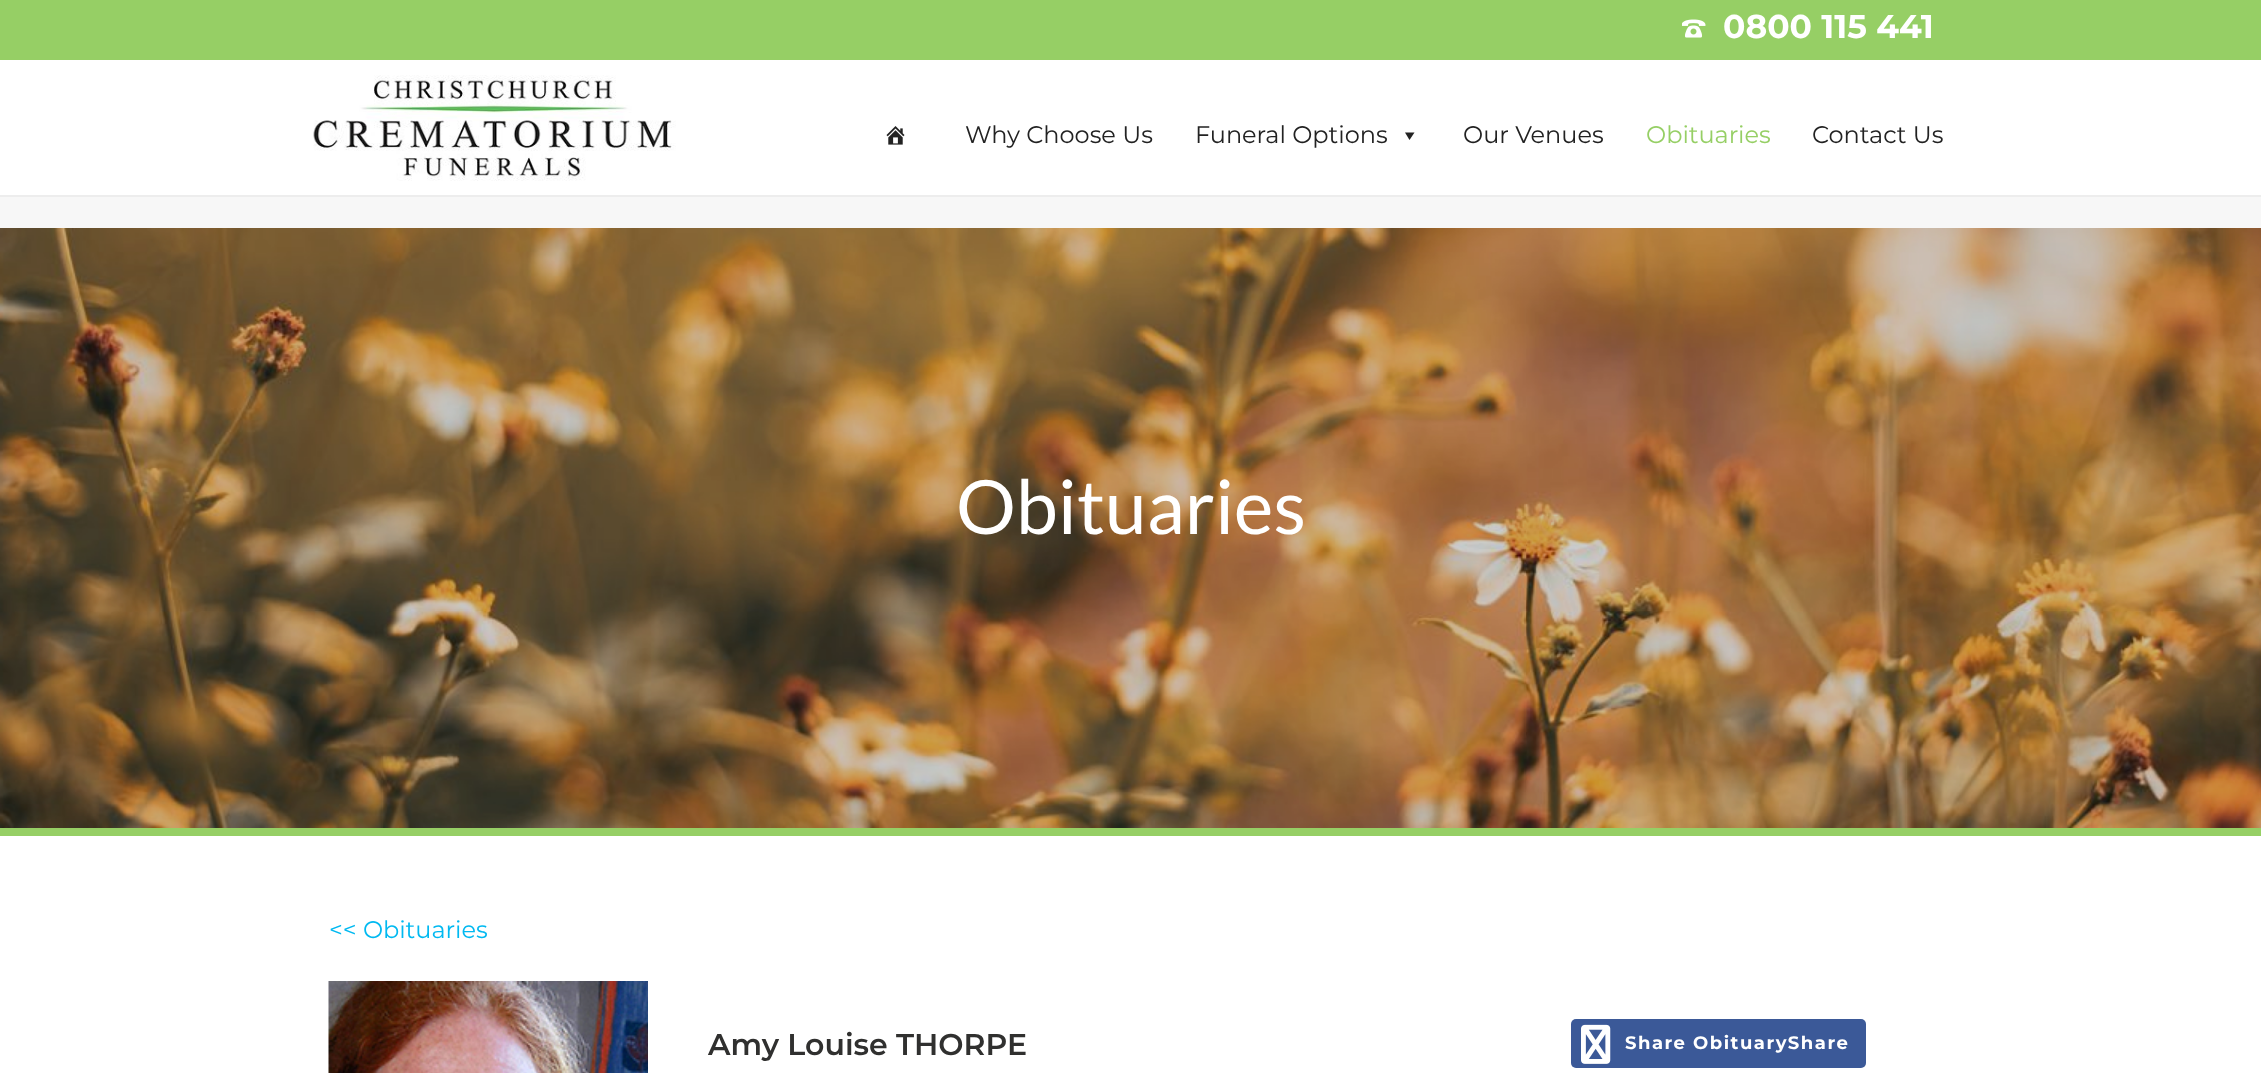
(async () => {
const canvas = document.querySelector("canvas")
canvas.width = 2261
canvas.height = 1073
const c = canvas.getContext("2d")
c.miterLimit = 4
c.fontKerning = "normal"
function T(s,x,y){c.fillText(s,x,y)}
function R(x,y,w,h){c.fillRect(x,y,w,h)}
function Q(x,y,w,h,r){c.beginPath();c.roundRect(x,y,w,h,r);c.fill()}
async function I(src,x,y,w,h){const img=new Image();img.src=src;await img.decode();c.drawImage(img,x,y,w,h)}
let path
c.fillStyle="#fff"
R(0,0,2261,1073)
c.fillStyle="#f7f7f7"
R(0,197,2261,31)
c.fillStyle="#96cf65"
R(0,0,2261,60)
await I("1.png",1682,19,24,19)
c.font="bold 33px Montserrat"
c.fillStyle="#fff"
T("0800 115 441",1723,38)
c.fillStyle="#ededed"
R(0,195,2261,2)
await I("2.png",313,75,363,106)
await I("3.png",886,126,19,19)
c.font="24px Montserrat"
c.fillStyle="#222"
T("Why Choose Us",965,143)
T("Funeral Options",1195,143)
path = new Path2D("M1414.5 132.5l-5 7.5l-4.5-7.5z")
c.fill(path)
T("Our Venues",1463,143)
c.fillStyle="#96cf65"
T("Obituaries",1646,143)
c.fillStyle="#222"
T("Contact Us",1812,143)
await I("4.png",0,228,2261,600)
c.font="75px Lato"
c.fillStyle="#fff"
T("Obituaries",956,534)
c.fillStyle="#96cf65"
R(0,828,2261,8)
c.font="24px Montserrat"
c.fillStyle="#00b9f1"
T("<< Obituaries",329,938)
await I("5.png",328,981,320,92)
c.font="600 30px Montserrat"
c.fillStyle="#30302f"
T("Amy Louise THORPE",708,1055)
c.fillStyle="#3b5998"
Q(1571,1019,295,49,5)
await I("6.png",1581,1024,30,40)
c.letterSpacing="1.5px"
c.font="bold 18px Montserrat"
c.fillStyle="#fff"
T("Share ObituaryShare",1625,1049)
})()
